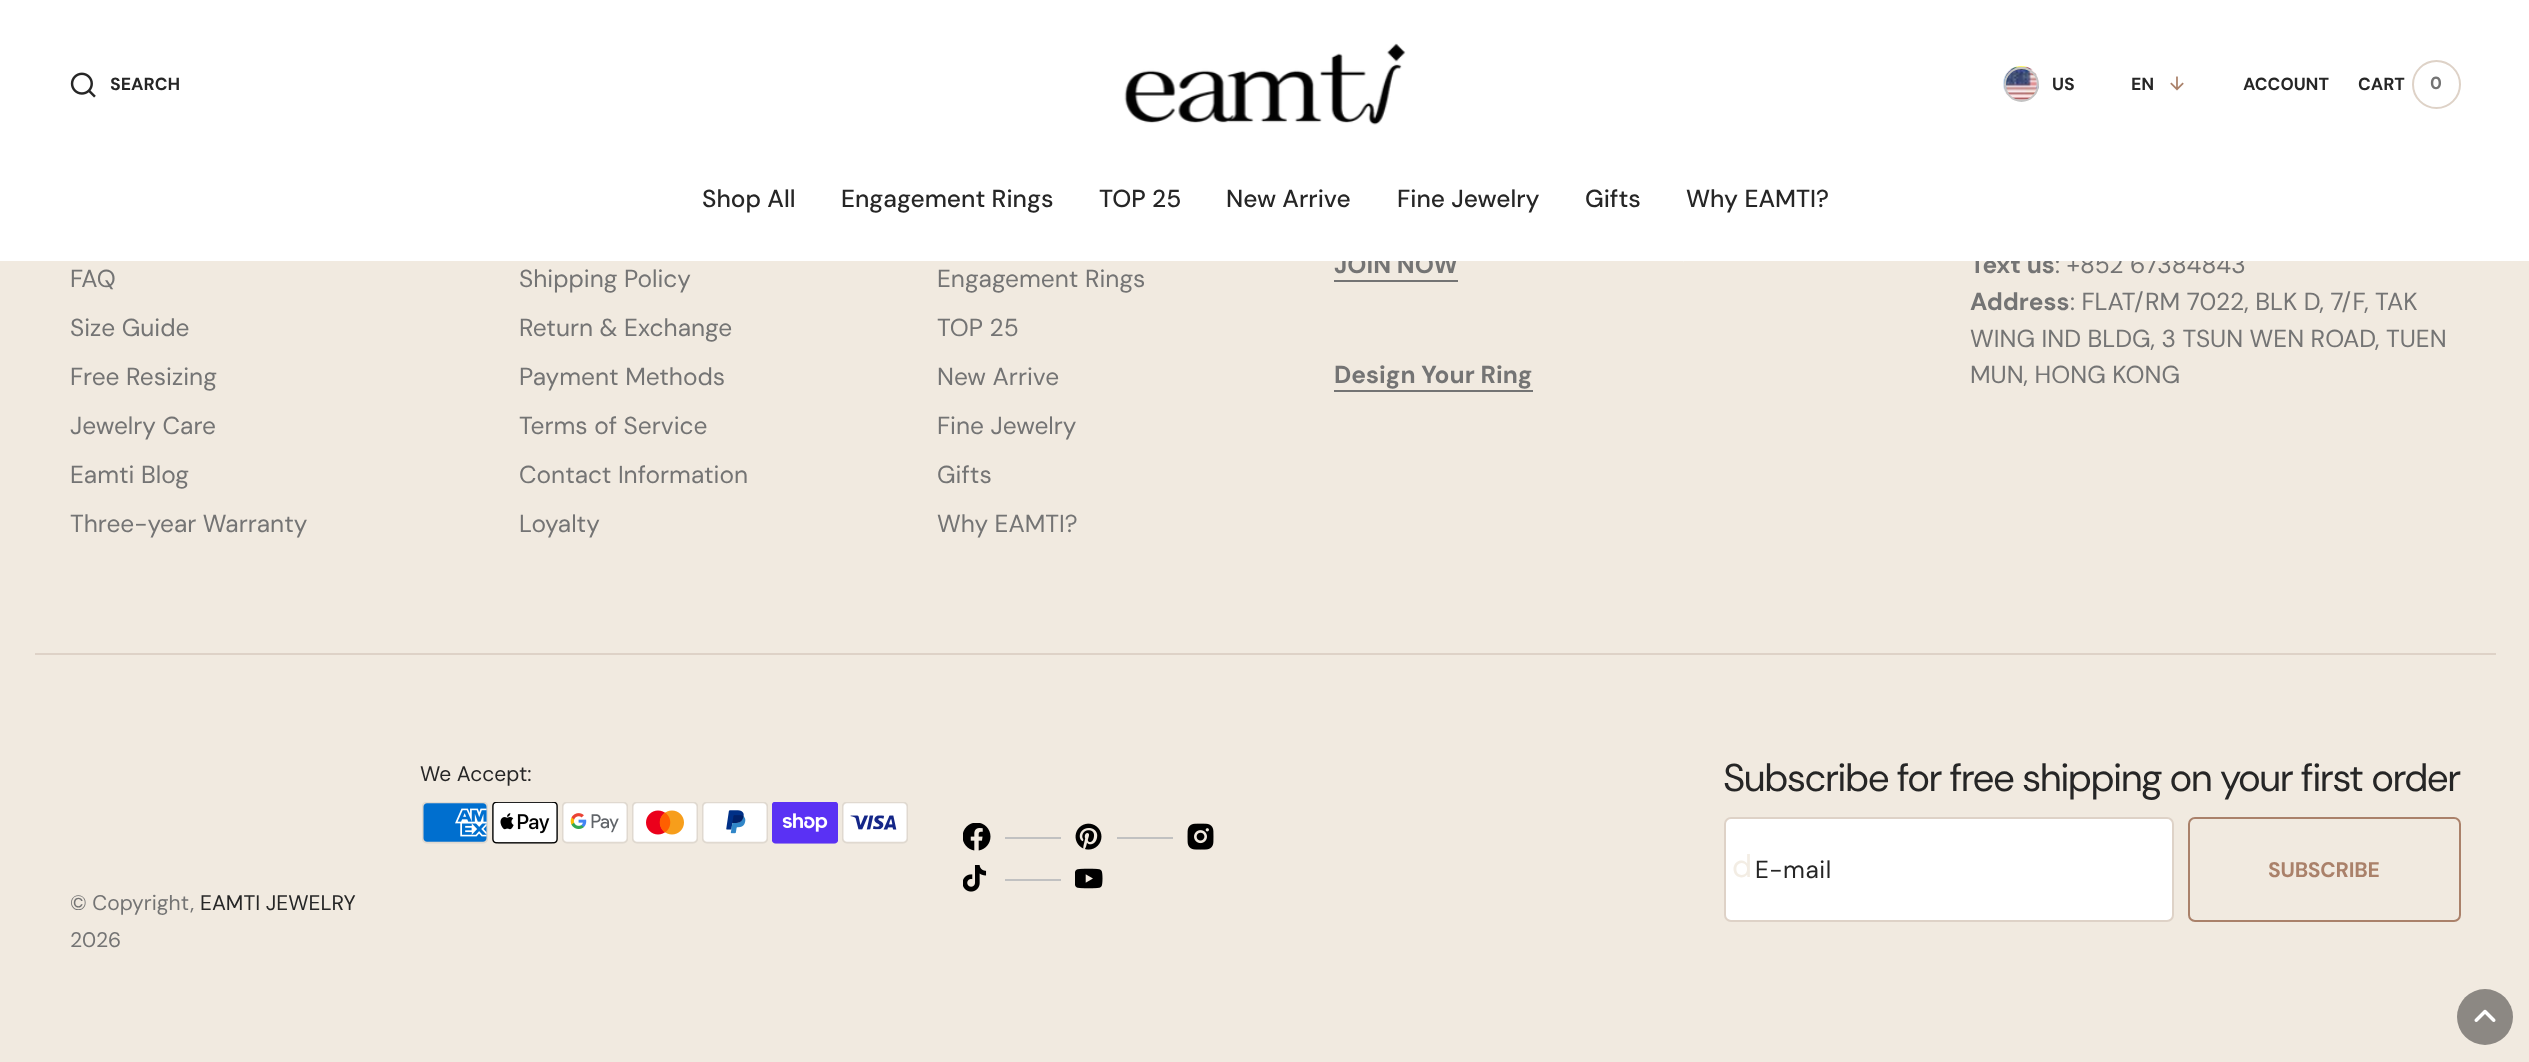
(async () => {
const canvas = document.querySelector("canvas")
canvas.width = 2529
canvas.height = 1062
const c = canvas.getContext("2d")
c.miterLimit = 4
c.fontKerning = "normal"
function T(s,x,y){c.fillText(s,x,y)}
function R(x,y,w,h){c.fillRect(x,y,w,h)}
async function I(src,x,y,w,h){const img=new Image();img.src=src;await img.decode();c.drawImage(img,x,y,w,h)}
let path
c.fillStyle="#f1eae0"
R(0,0,2529,1062)
c.font="bold 24.5px DM Sans"
c.fillStyle="#747474"
T("JOIN NOW",1334,273)
T("Text us",1970,273)
c.font="24.5px DM Sans"
T(": +852 67384843",2055,273)
c.fillStyle="#fff"
R(0,0,2529,261)
await I("1.png",70,72,26,26)
c.font="bold 17.5px 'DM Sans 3'"
c.fillStyle="#262626"
T("SEARCH",110,90)
await I("2.png",1124,43,282,82)
await I("3.png",2003,66,36,35)
c.beginPath()
c.arc(2021.5,84.5,16.5,0,7)
c.strokeStyle="#c4c4c4"
c.lineWidth=2
c.stroke()
T("US",2052,90)
T("EN",2131,90)
await I("4.png",2170,76,14,15)
T("ACCOUNT",2243,90)
T("CART",2358,90)
c.beginPath()
c.arc(2436.5,84.5,23.5,0,7)
c.strokeStyle="#ded2c7"
c.stroke()
c.fillStyle="#747474"
T("0",2430,89)
c.font="500 24.5px DM Sans"
c.fillStyle="#262626"
T("Shop All",702,207)
T("Engagement Rings",841,207)
c.fillStyle="#fff"
c.beginPath()
c.roundRect(1725,818,448,103,6)
c.fill()
c.stroke()
c.font="32px 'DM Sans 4'"
c.fillStyle="#f3ede4"
T("d",1732,877)
c.font="500 24.5px DM Sans"
c.fillStyle="#262626"
T("TOP 25",1099,207)
T("New Arrive",1226,207)
T("Fine Jewelry",1397,207)
T("Gifts",1585,207)
T("Why EAMTI?",1686,207)
c.fillStyle="#fff"
path = new Path2D("M1684 261v1l-2-5h350l-2 4z")
c.fill(path)
c.font="24.5px DM Sans"
c.fillStyle="#747474"
T("FAQ",70,287)
T("Size Guide",70,336)
T("Free Resizing",70,385)
T("Jewelry Care",70,434)
T("Eamti Blog",70,483)
T("Three-year Warranty",70,532)
T("Shipping Policy",519,287)
T("Return & Exchange",519,336)
T("Payment Methods",519,385)
T("Terms of Service",519,434)
T("Contact Information",519,483)
T("Loyalty",519,532)
T("Engagement Rings",937,287)
T("TOP 25",937,336)
T("New Arrive",937,385)
T("Fine Jewelry",937,434)
T("Gifts",937,483)
T("Why EAMTI?",937,532)
R(1334,280,124,2)
c.font="bold 24.5px DM Sans"
T("Design Your Ring",1334,383)
R(1334,390,199,2)
T("Address",1970,310)
c.font="24.5px DM Sans"
T(": FLAT/RM 7022, BLK D, 7/F, TAK",2070,310)
T("WING IND BLDG, 3 TSUN WEN ROAD, TUEN",1970,347)
T("MUN, HONG KONG",1970,383)
c.fillStyle="#ded2c7"
R(35,653,2461,2)
c.font="21px 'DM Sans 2'"
c.fillStyle="#262626"
T("We Accept:",420,781)
await I("5.png",422,802,66,42)
await I("6.png",492,802,66,42)
await I("7.png",562,802,66,42)
await I("8.png",632,802,66,42)
await I("9.png",702,802,66,42)
await I("10.png",772,802,66,42)
await I("11.png",842,802,66,42)
await I("12.png",963,823,28,28)
c.fillStyle="#c1c1c1"
R(1005,837,56,2)
await I("13.png",1075,823,27,27)
R(1117,837,56,2)
await I("14.png",1187,823,27,27)
await I("15.png",963,865,24,27)
R(1005,879,56,2)
await I("16.png",1075,868,28,21)
c.fillStyle="#747474"
T("© Copyright,",70,910)
c.fillStyle="#262626"
T("EAMTI JEWELRY",200,910)
c.fillStyle="#747474"
T("2026",70,947)
c.letterSpacing="-1.55px"
c.font="38.5px 'DM Sans 3'"
c.fillStyle="#262626"
T("Subscribe for free shipping on your first order",1723,791)
c.letterSpacing="0.5px"
c.font="24.5px DM Sans"
T("E-mail",1755,878)
c.beginPath()
c.roundRect(2189,818,271,103,6)
c.strokeStyle="#aa816a"
c.stroke()
c.letterSpacing="-0.25px"
c.font="bold 21px 'DM Sans 2'"
c.fillStyle="#aa816a"
T("SUBSCRIBE",2268,877)
c.fillStyle="#8c8883"
c.beginPath()
c.arc(2485,1017,28,0,7)
c.fill()
await I("17.png",2474,1009,22,13)
})()
